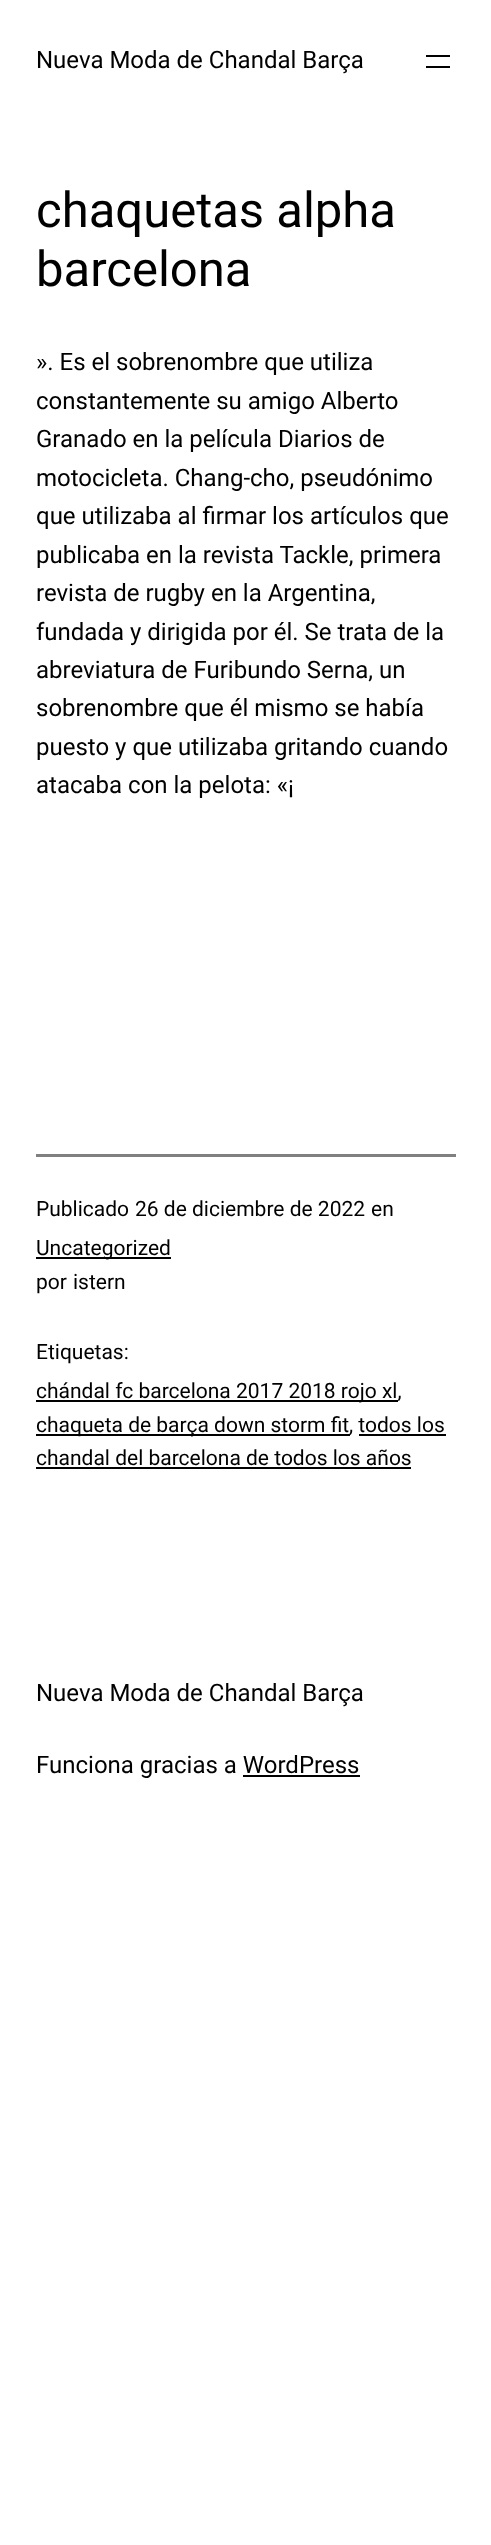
(async () => {
const canvas = document.querySelector("canvas")
canvas.width = 491
canvas.height = 2545
const c = canvas.getContext("2d")
c.miterLimit = 4
c.fontKerning = "normal"
function T(s,x,y){c.fillText(s,x,y)}
function R(x,y,w,h){c.fillRect(x,y,w,h)}
c.fillStyle="#fff"
R(0,0,491,2545)
c.font="24px Roboto"
c.fillStyle="#000"
T("Nueva Moda de Chandal Barça",36,68)
R(426,55,24,2)
R(426,66,24,2)
c.font="49px Roboto"
T("chaquetas alpha",36,227)
T("barcelona",36,286)
c.font="24px Roboto"
T("». Es el sobrenombre que utiliza",36,370)
T("constantemente su amigo Alberto",36,409)
T("Granado en la película Diarios de",36,447)
T("motocicleta. Chang-cho, pseudónimo",36,486)
T("que utilizaba al firmar los artículos que",36,524)
T("publicaba en la revista Tackle, primera",36,563)
T("revista de rugby en la Argentina,",36,601)
T("fundada y dirigida por él. Se trata de la",36,640)
T("abreviatura de Furibundo Serna, un",36,678)
T("sobrenombre que él mismo se había",36,716)
T("puesto y que utilizaba gritando cuando",36,755)
T("atacaba con la pelota: «¡",36,793)
c.fillStyle="#808080"
R(36,1154,420,3)
c.font="21px Roboto"
c.fillStyle="#000"
T("Publicado",36,1216)
T("26 de diciembre de 2022",135,1216)
T("en",371,1216)
R(36,1257,135,2)
T("Uncategorized",36,1255)
T("por",36,1289)
T("istern",73,1289)
T("Etiquetas:",36,1359)
R(36,1400,362,2)
T("chándal fc barcelona 2017 2018 rojo xl,",36,1398)
R(36,1434,314,2)
T("chaqueta de barça down storm fit",36,1432)
T(", todos los",349,1432)
T("chandal del barcelona de todos los años",36,1465)
R(359,1434,87,2)
R(36,1467,375,2)
c.font="24px Roboto"
T("Nueva Moda de Chandal Barça",36,1701)
T("Funciona gracias a WordPress",36,1773)
R(243,1775,117,2)
})()
